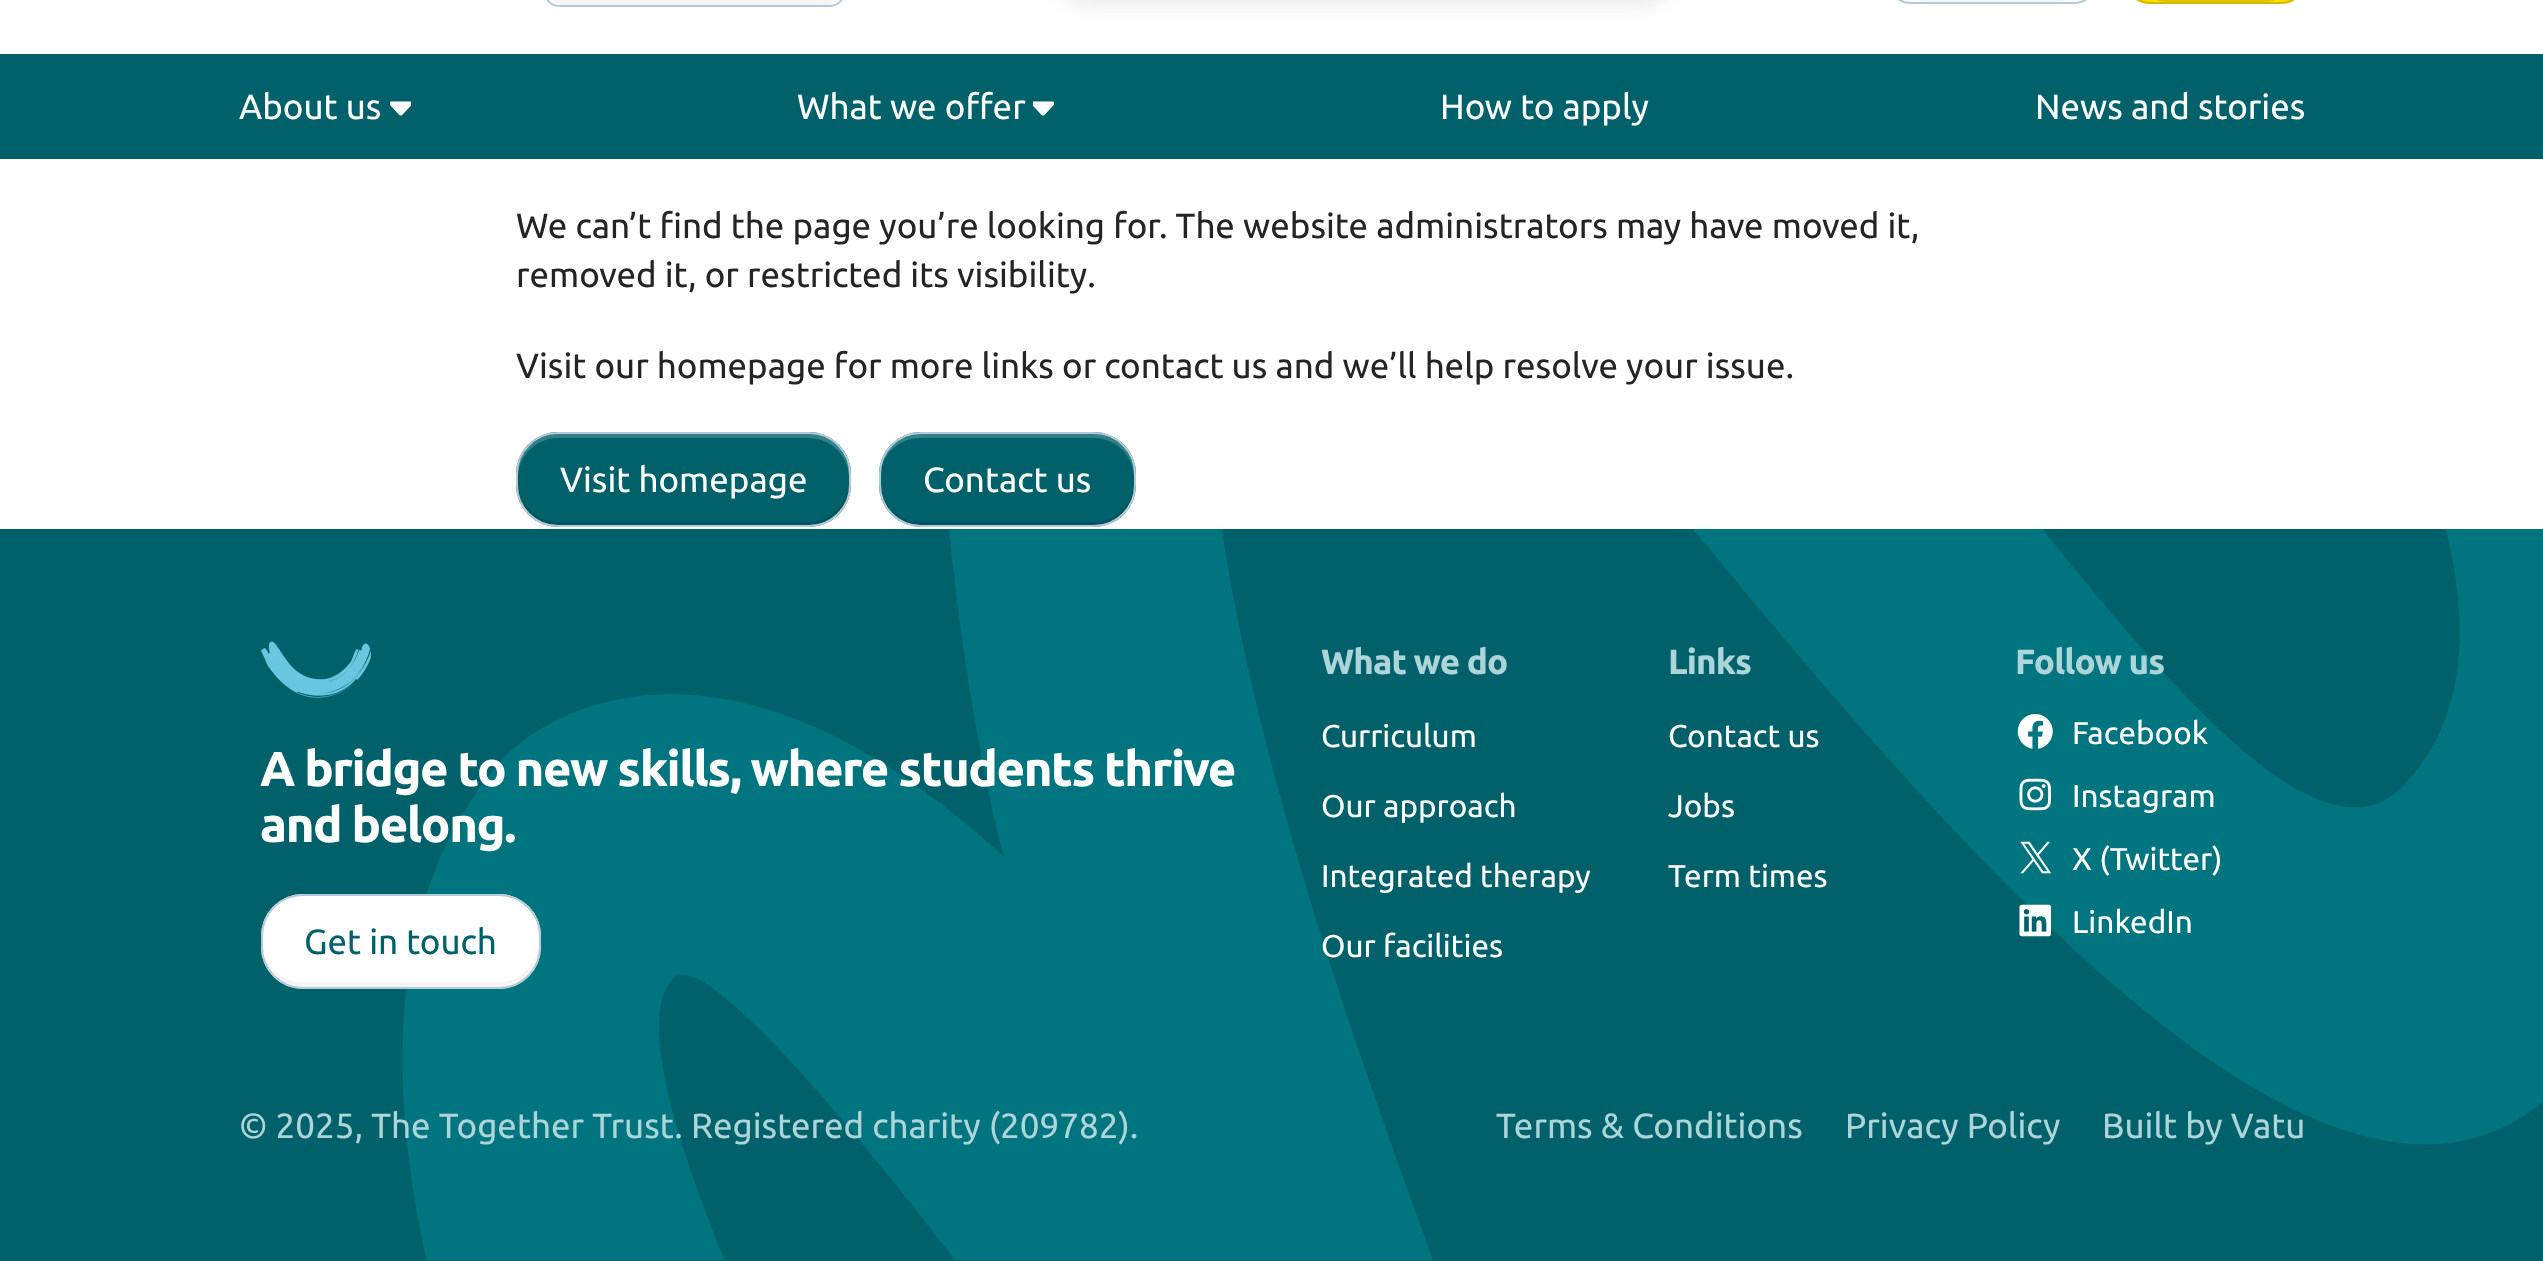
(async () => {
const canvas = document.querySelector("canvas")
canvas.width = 2543
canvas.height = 1261
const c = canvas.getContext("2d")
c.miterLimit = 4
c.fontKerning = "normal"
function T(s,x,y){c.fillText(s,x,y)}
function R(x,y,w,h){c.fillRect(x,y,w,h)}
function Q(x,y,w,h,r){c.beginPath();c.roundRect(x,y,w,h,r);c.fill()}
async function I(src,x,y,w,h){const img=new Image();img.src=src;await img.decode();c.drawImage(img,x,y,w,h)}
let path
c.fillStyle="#fff"
R(0,0,2543,1261)
c.fillStyle="#f5f5f5"
path = new Path2D("M546-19v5c0 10 9 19 19 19h260c10 0 19-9 19-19v-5c0 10-9 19-20 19h-259c-10 0-19-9-19-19z")
c.fill(path)
c.beginPath()
c.roundRect(545,-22,299,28,20)
c.strokeStyle="#b4cad8"
c.lineWidth=2
c.stroke()
path = new Path2D("M1888-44v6c0 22 18 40 40 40h129c22 0 40-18 40-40v-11c0-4 0-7-1-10v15c0 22-18 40-40 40h-128c-22 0-40-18-40-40z")
c.fill(path)
c.beginPath()
c.roundRect(1888,-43,209,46,41)
c.stroke()
c.fillStyle="#ffdc00"
Q(2126,-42,179,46,42)
c.fillStyle="#e0c200"
path = new Path2D("M2128-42v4c0 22 18 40 40 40h95c22 0 40-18 40-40v-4c0 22-18 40-40 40h-95c-22 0-40-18-40-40z")
c.fill(path)
c.beginPath()
c.roundRect(2127,-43,177,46,41)
c.strokeStyle="#00000029"
c.stroke()
c.fillStyle="#24242429"
c.filter="blur(10.5px)"
c.beginPath()
c.roundRect(1066,-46,598,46,14)
c.fill()
c.filter="none"
c.fillStyle="#00616a"
R(0,54,2543,105)
c.font="35px Ubuntu"
c.fillStyle="#fff"
T("About us",239,119)
await I("1.png",390,101,21,15)
T("What we offer",797,119)
await I("2.png",1033,101,21,15)
T("How to apply",1440,119)
T("News and stories",2035,119)
c.fillStyle="#242424"
T("We can’t find the page you’re looking for. The website administrators may have moved it,",516,238)
T("removed it, or restricted its visibility.",516,287)
T("Visit our homepage for more links or contact us and we’ll help resolve your issue.",516,378)
c.fillStyle="#00616a"
Q(516,432,335,95,42)
c.fillStyle="#00555d"
path = new Path2D("M518 481v4c0 22 18 40 40 40h251c22 0 40-18 40-40v-4c0 22-18 41-41 41h-250c-22 0-40-19-40-41z")
c.fill(path)
c.fillStyle="#338188"
path = new Path2D("M558 438h250c23 0 41 18 41 40v-4c0-22-18-40-40-40h-251c-22 0-40 18-40 40v4c0-22 18-40 40-40z")
c.fill(path)
c.beginPath()
c.roundRect(517,433,333,93,41)
c.strokeStyle="#b4cad8"
c.stroke()
c.fillStyle="#fff"
T("Visit homepage",560,492)
c.fillStyle="#00616a"
Q(879,432,257,95,42)
c.fillStyle="#00555d"
path = new Path2D("M880 481v4c0 22 18 40 40 40h174c22 0 40-18 40-40v-4c0 22-18 41-40 41h-174c-22 0-40-19-40-41z")
c.fill(path)
c.fillStyle="#338188"
path = new Path2D("M920 438h174c22 0 40 18 40 40v-4c0-22-18-40-40-40h-174c-22 0-40 18-40 40v4c0-22 18-40 40-40z")
c.fill(path)
c.beginPath()
c.roundRect(880,433,255,93,41)
c.stroke()
c.fillStyle="#fff"
T("Contact us",923,492)
c.fillStyle="#00616a"
R(0,529,2543,732)
await I("3.png",402,529,2141,731)
await I("4.png",261,641,110,57)
c.letterSpacing="-1.45px"
c.font="bold 49px Ubuntu"
c.fillStyle="#fff"
T("A bridge to new skills, where students thrive",260,786)
T("and belong.",260,842)
Q(261,894,280,95,42)
c.fillStyle="#f5f5f5"
path = new Path2D("M263 952c3 20 20 35 40 35h196c22 0 40-18 40-40v-5c0 22-18 40-40 40h-196c-19 0-35-13-40-30z")
c.fill(path)
c.beginPath()
c.roundRect(262,895,278,93,41)
c.stroke()
c.letterSpacing="0px"
c.font="35px Ubuntu"
c.fillStyle="#00616a"
T("Get in touch",304,954)
c.letterSpacing="-0.9px"
c.font="bold 35px Ubuntu"
c.fillStyle="#add5d9"
T("What we do",1321,674)
c.letterSpacing="0px"
c.font="31.5px Ubuntu"
c.fillStyle="#fff"
T("Curriculum",1321,747)
T("Our approach",1321,817)
T("Integrated therapy",1321,887)
T("Our facilities",1321,957)
c.letterSpacing="-0.9px"
c.font="bold 35px Ubuntu"
c.fillStyle="#add5d9"
T("Links",1668,674)
c.letterSpacing="0px"
c.font="31.5px Ubuntu"
c.fillStyle="#fff"
T("Contact us",1668,747)
T("Jobs",1668,817)
T("Term times",1668,887)
c.letterSpacing="-0.9px"
c.font="bold 35px Ubuntu"
c.fillStyle="#add5d9"
T("Follow us",2015,674)
await I("5.png",2017,714,36,35)
c.letterSpacing="0px"
c.font="31.5px Ubuntu"
c.fillStyle="#fff"
T("Facebook",2072,744)
await I("6.png",2019,778,32,33)
T("Instagram",2072,807)
await I("7.png",2020,841,32,33)
T("X (Twitter)",2072,870)
await I("8.png",2019,904,32,33)
T("LinkedIn",2072,933)
c.font="35px Ubuntu"
c.fillStyle="#add5d9"
T("© 2025, The Together Trust. Registered charity (209782).",239,1138)
T("Terms & Conditions",1496,1138)
T("Privacy Policy",1845,1138)
T("Built by Vatu",2102,1138)
})()
